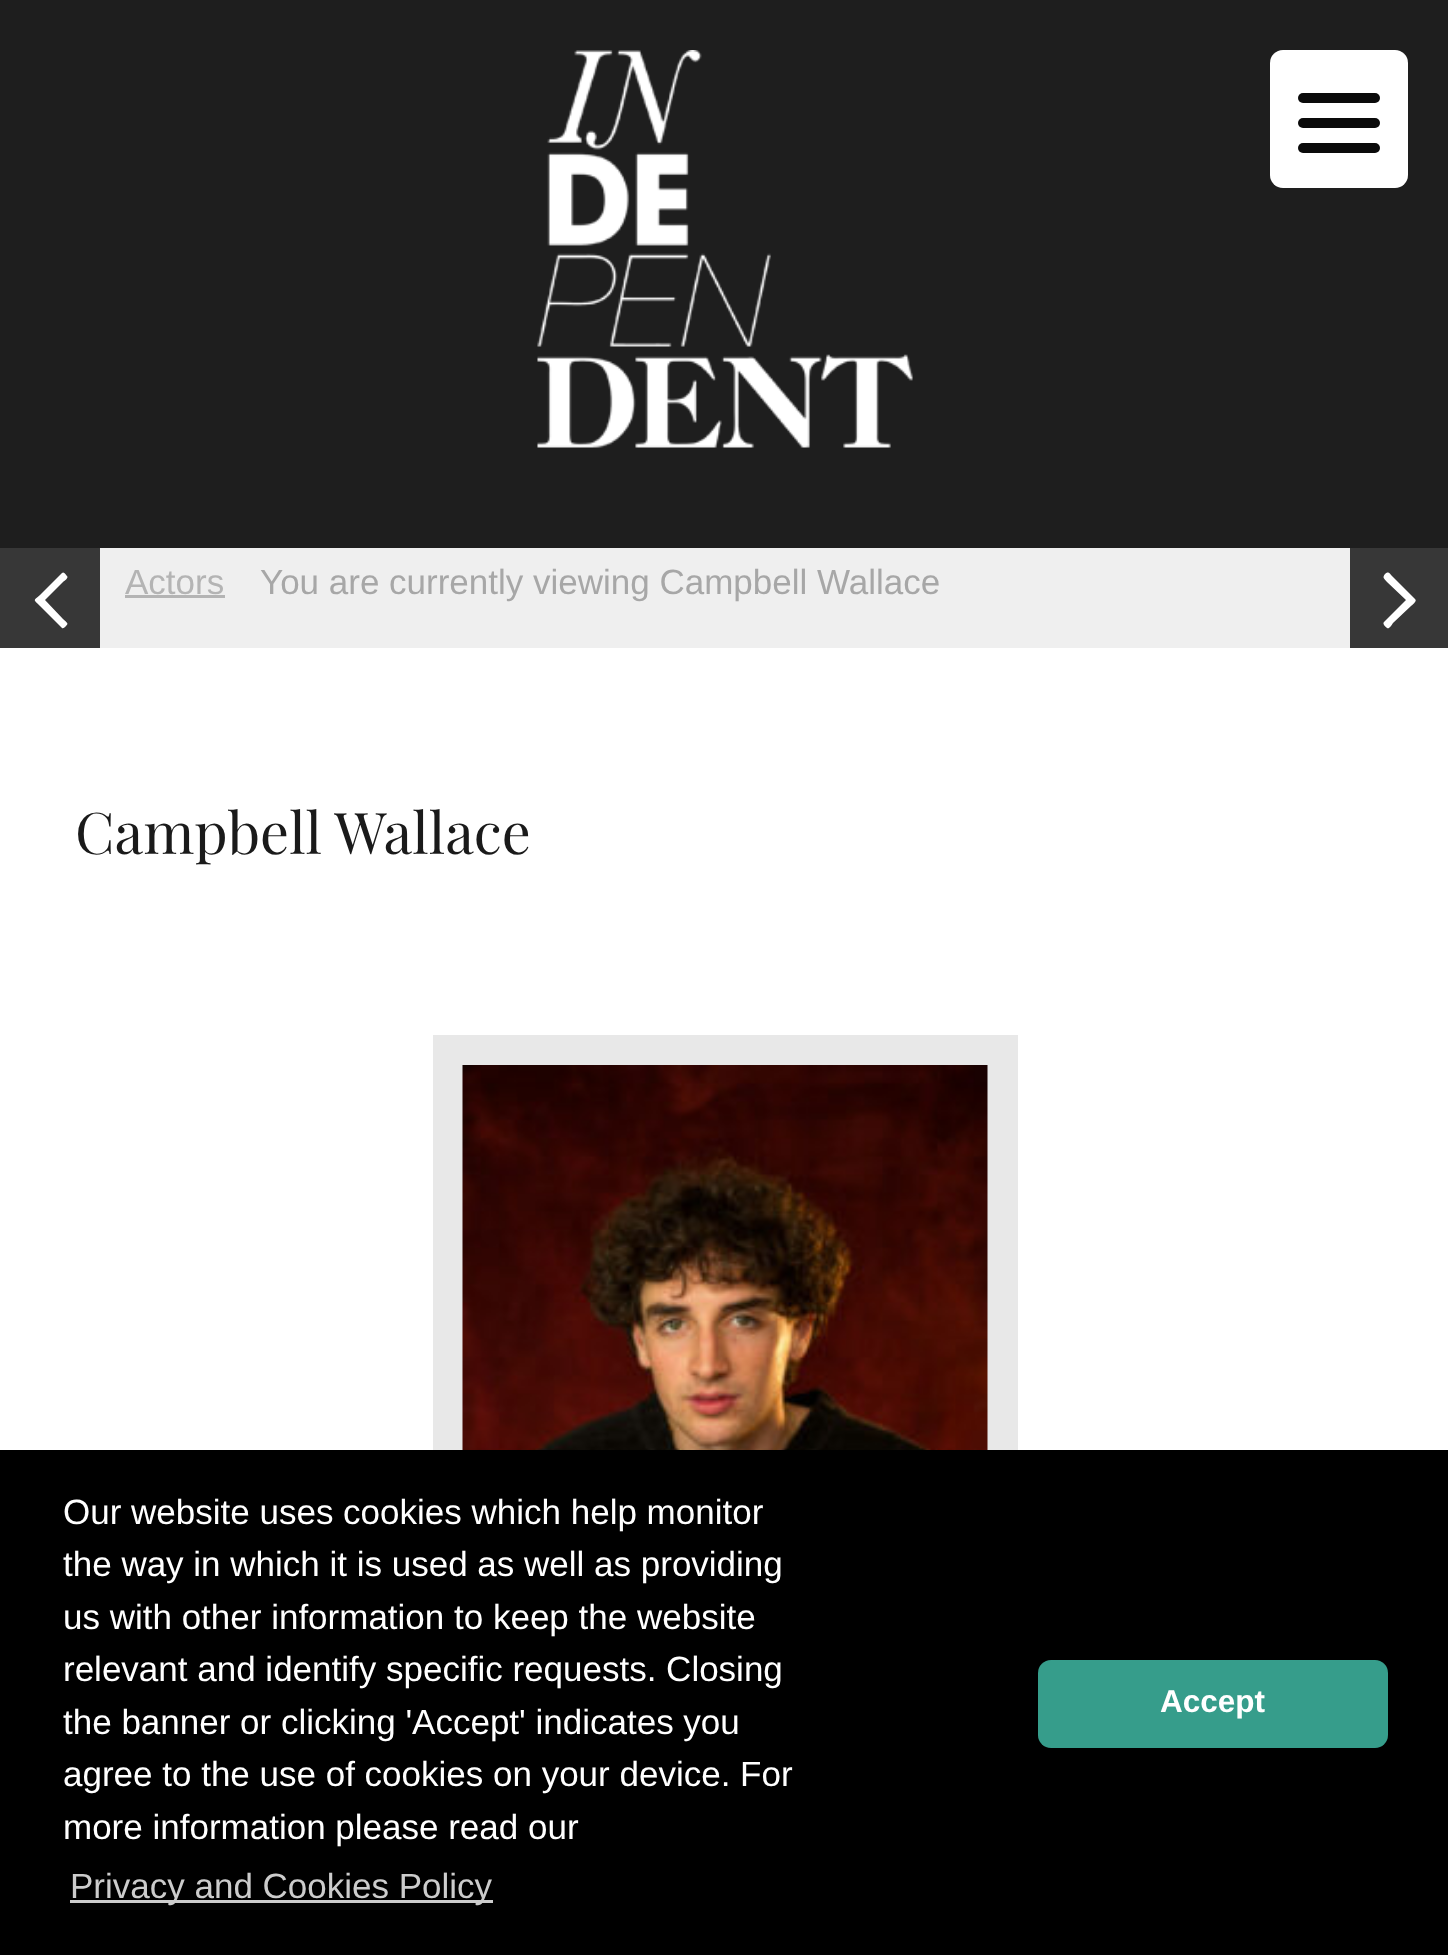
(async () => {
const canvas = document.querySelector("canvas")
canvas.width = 1448
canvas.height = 1955
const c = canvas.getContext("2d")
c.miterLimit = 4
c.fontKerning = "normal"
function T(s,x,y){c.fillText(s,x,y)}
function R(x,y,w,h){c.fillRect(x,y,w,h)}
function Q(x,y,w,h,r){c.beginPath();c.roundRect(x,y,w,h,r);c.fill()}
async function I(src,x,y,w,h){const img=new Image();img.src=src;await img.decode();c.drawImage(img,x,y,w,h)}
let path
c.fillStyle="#1e1e1e"
R(0,0,1448,1955)
c.fillStyle="#fff"
Q(1270,50,138,138,13)
c.fillStyle="#0a0a0a"
Q(1298,118,82,10,5)
Q(1298,93,82,10,5)
Q(1298,143,82,10,5)
await I("1.png",537,50,376,398)
c.fillStyle="#fff"
R(0,648,1448,802)
c.fillStyle="#efefef"
R(100,548,1250,100)
c.fillStyle="#373737"
R(0,548,100,100)
c.fillStyle="#fff"
path = new Path2D("M67 576c2 2-3 5-4 6l-18 18l18 19c4 4 6 4 3 7c-1 1-3 3-4 2l-22-22c-7-7-7-5 0-11l22-22c2-2 4 2 5 3z")
c.fill(path)
c.font="35px Liberation Sans"
c.fillStyle="#b4b4b4"
T("Actors",125,594)
R(125,595,100,3)
c.fillStyle="#a7a7a7"
T("You are currently viewing Campbell Wallace",260,594)
c.fillStyle="#373737"
R(1350,548,98,100)
c.fillStyle="#fff"
path = new Path2D("M1415 599c3 2-4 7-4 7l-18 17c0 0-4 7-6 5c-1-1-5-4-3-6l22-22l-19-18c-3-4-5-4-2-8c4-3 4-1 8 3z")
c.fill(path)
c.font="57.5px Playfair Display"
c.fillStyle="#1a1a1a"
T("Campbell Wallace",75,854)
c.fillStyle="#e8e8e8"
R(433,1035,585,415)
await I("2.png",462,1065,526,385)
c.fillStyle="#000"
R(0,1450,1448,505)
c.font="35px Liberation Sans"
c.fillStyle="#fff"
T("Our website uses cookies which help monitor",63,1524)
T("the way in which it is used as well as providing",63,1576)
T("us with other information to keep the website",63,1629)
T("relevant and identify specific requests. Closing",63,1681)
T("the banner or clicking 'Accept' indicates you",63,1734)
T("agree to the use of cookies on your device. For",63,1786)
T("more information please read our",63,1839)
c.fillStyle="#ccc"
R(70,1900,423,3)
T("Privacy and Cookies Policy",70,1898)
c.fillStyle="#369d8b"
Q(1038,1660,350,88,13)
c.font="bold 31.5px Liberation Sans"
c.fillStyle="#fff"
T("Accept",1160,1712)
})()
